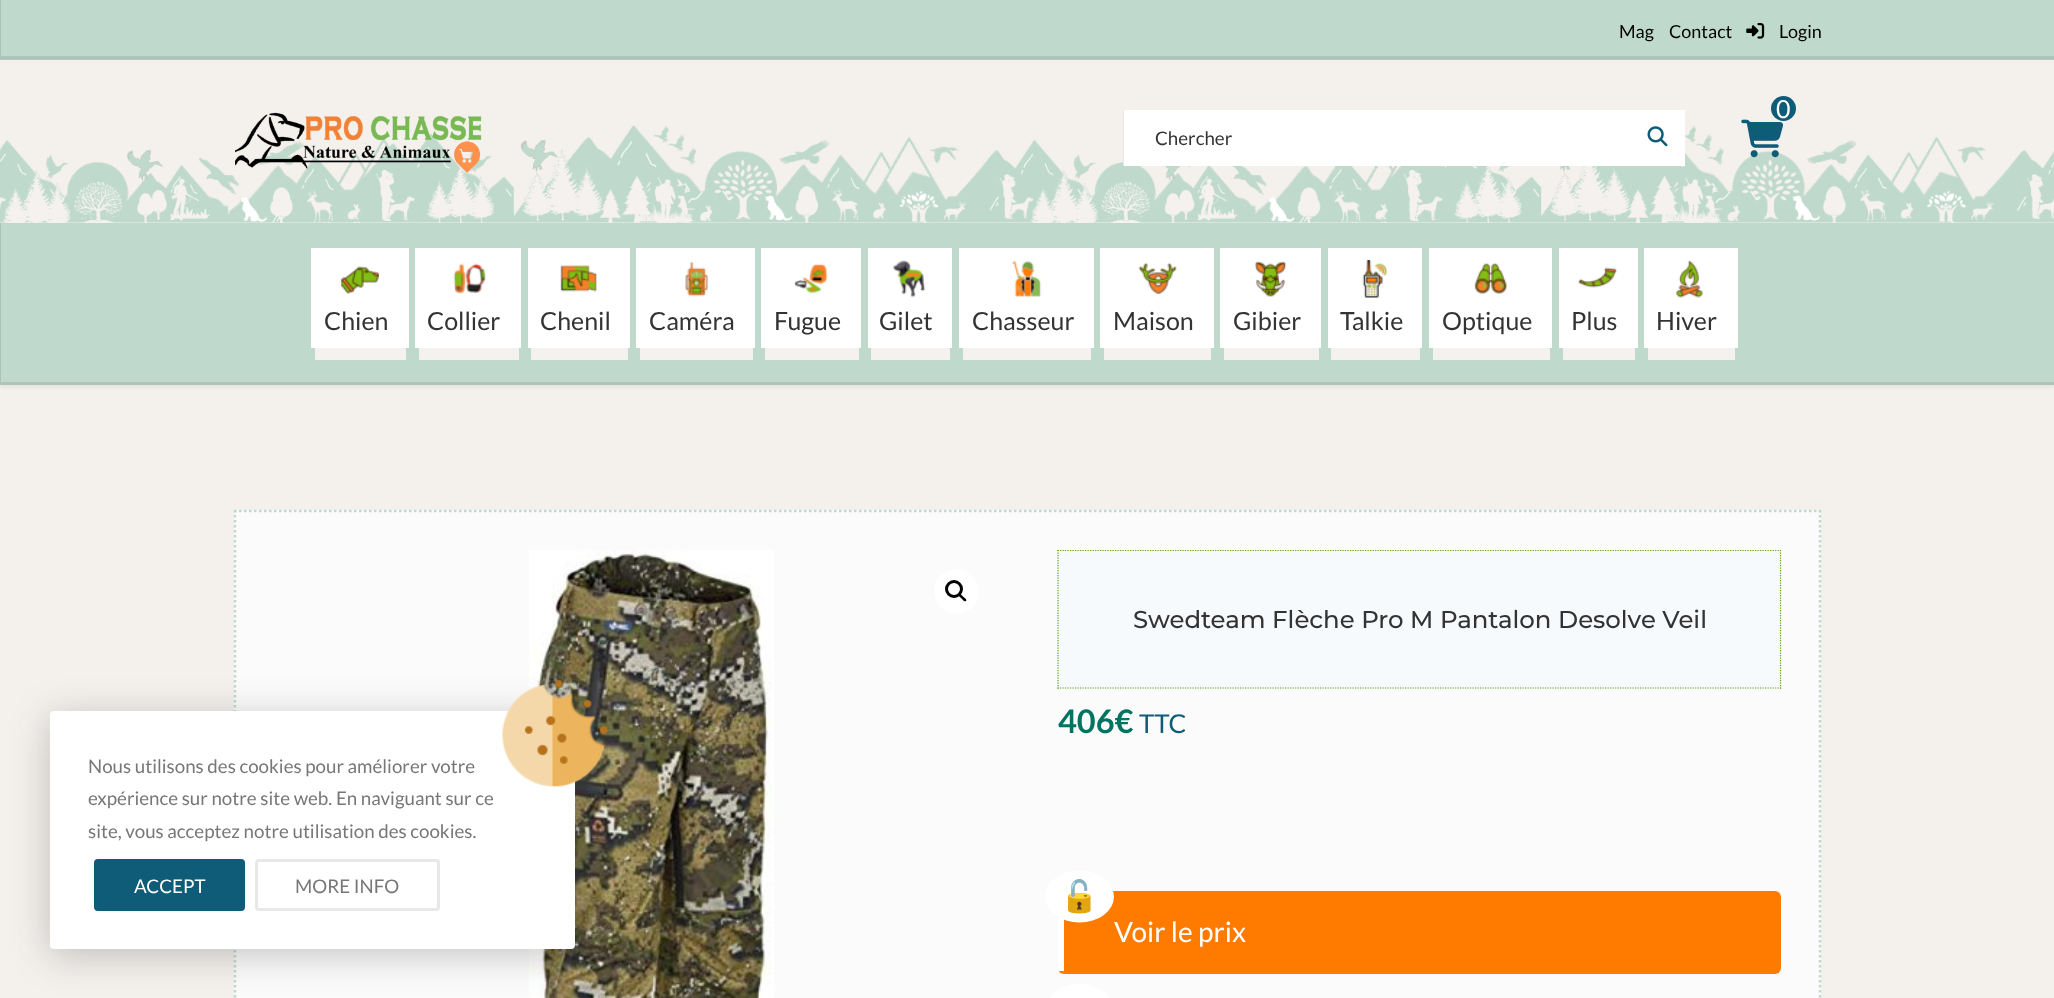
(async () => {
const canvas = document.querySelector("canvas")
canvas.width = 2054
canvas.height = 998
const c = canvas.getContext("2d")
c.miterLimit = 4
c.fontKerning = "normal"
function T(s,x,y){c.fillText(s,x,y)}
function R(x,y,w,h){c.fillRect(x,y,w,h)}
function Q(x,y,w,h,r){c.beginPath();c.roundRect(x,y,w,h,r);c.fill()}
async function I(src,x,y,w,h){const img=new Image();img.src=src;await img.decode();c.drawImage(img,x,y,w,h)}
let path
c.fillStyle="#f4f1ed"
R(0,0,2054,998)
c.fillStyle="#fbfbfb"
R(234,510,1587,488)
path = new Path2D("M234 511h1587")
c.strokeStyle="#bfdacd"
c.lineWidth=2.5
c.setLineDash([2.5,2.5])
c.stroke(path)
path = new Path2D("M235 510v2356")
c.stroke(path)
await I("20.png",529,550,245,448)
c.fillStyle="#20202040"
c.filter="blur(19px)"
c.beginPath()
c.roundRect(50,718,525,237,4)
c.fill()
c.filter="none"
c.fillStyle="#fff"
Q(50,711,525,238,4)
await I("1.png",502,679,106,108)
c.font="18.75px Lato"
c.fillStyle="#777"
T("Nous utilisons des cookies pour améliorer votre",88,773)
T("expérience sur notre site web. En naviguant sur ce",88,805)
T("site, vous acceptez notre utilisation des cookies.",88,838)
c.fillStyle="#0f5c78"
Q(94,859,151,52,4)
c.fillStyle="#fff"
T("ACCEPT",134,893)
c.beginPath()
c.roundRect(256.5,860.5,182,49,2.5)
c.strokeStyle="#e8e8e8"
c.lineWidth=3
c.setLineDash([])
c.stroke()
c.fillStyle="#777"
T("MORE INFO",295,893)
c.fillStyle="#0000000d"
c.filter="blur(2px)"
c.beginPath()
c.rect(0,3,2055,385)
c.fill()
c.filter="none"
c.fillStyle="#bfdacd"
R(1,0,2053,56)
c.fillStyle="#acc4b9"
path = new Path2D("M-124-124h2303v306h-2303zm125 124h2053v56h-2053z")
c.fill(path,"evenodd")
c.fillStyle="#b0c9bd"
R(0,59,2054,1)
c.font="18px Lato"
c.fillStyle="#000"
T("Mag",1619,38)
T("Contact",1669,38)
await I("2.png",1746,23,19,16)
T("Login",1779,38)
c.fillStyle="#f4f1ed"
R(0,60,2054,163)
await I("3.png",0,125,2054,98)
await I("4.png",235,112,247,61)
await I("5.png",1741,119,42,39)
c.fillStyle="#0f5c78"
c.beginPath()
c.arc(1783.5,108.5,12.5,0,7)
c.fill()
c.font="25px Lato"
c.fillStyle="#fff"
T("0",1776,118)
R(1124,110,561,56)
c.fillStyle="#e6e6e6"
R(1123,110,1,56)
c.font="18.75px Lato"
c.fillStyle="#333"
T("Chercher",1155,145)
await I("6.png",1647,126,21,21)
c.fillStyle="#bfdacd"
R(1,223,2053,159)
c.save()
c.beginPath()
c.rect(0,223,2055,162)
c.clip()
c.fillStyle="#acc4b9"
path = new Path2D("M-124 99h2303v410h-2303zm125 123h2053v160h-2053z")
c.fill(path,"evenodd")
c.restore()
c.fillStyle="#fff"
R(311,248,98,100)
c.fillStyle="#f5f1ee"
R(315,348,91,12)
await I("7.png",341,266,38,28)
c.font="25px Lato"
c.fillStyle="#333"
T("Chien",324,330)
c.fillStyle="#fff"
R(415,248,106,100)
c.fillStyle="#f5f1ee"
R(419,348,100,12)
await I("8.png",453,263,33,31)
c.fillStyle="#333"
T("Collier",427,330)
c.fillStyle="#fff"
R(528,248,102,100)
c.fillStyle="#f5f1ee"
R(531,348,97,12)
await I("9.png",560,265,37,27)
c.fillStyle="#333"
T("Chenil",540,330)
c.fillStyle="#fff"
R(636,248,119,100)
c.fillStyle="#f5f1ee"
R(640,348,113,12)
await I("10.png",685,261,24,36)
c.fillStyle="#333"
T("Caméra",649,330)
c.fillStyle="#fff"
R(761,248,100,100)
c.fillStyle="#f5f1ee"
R(765,348,94,12)
await I("11.png",794,263,34,31)
c.fillStyle="#333"
T("Fugue",774,330)
c.fillStyle="#fff"
R(868,248,84,100)
c.fillStyle="#f5f1ee"
R(871,348,79,12)
await I("12.png",892,260,34,38)
c.fillStyle="#333"
T("Gilet",879,330)
c.fillStyle="#fff"
R(959,248,135,100)
c.fillStyle="#f5f1ee"
R(963,348,128,12)
await I("13.png",1012,261,30,37)
c.fillStyle="#333"
T("Chasseur",972,330)
c.fillStyle="#fff"
R(1100,248,114,100)
c.fillStyle="#f5f1ee"
R(1104,348,107,12)
await I("14.png",1138,262,39,33)
c.fillStyle="#333"
T("Maison",1113,330)
c.fillStyle="#fff"
R(1220,248,101,100)
c.fillStyle="#f5f1ee"
R(1224,348,95,12)
await I("15.png",1255,261,32,36)
c.fillStyle="#333"
T("Gibier",1233,330)
c.fillStyle="#fff"
R(1328,248,94,100)
c.fillStyle="#f5f1ee"
R(1331,348,89,12)
await I("16.png",1362,260,26,38)
c.fillStyle="#333"
T("Talkie",1340,330)
c.fillStyle="#fff"
R(1429,248,123,100)
c.fillStyle="#f5f1ee"
R(1433,348,117,12)
await I("17.png",1474,263,34,31)
c.fillStyle="#333"
T("Optique",1442,330)
c.fillStyle="#fff"
R(1559,248,79,100)
c.fillStyle="#f5f1ee"
R(1563,348,72,12)
await I("18.png",1578,267,39,21)
c.fillStyle="#333"
T("Plus",1571,330)
c.fillStyle="#fff"
R(1644,248,94,100)
c.fillStyle="#f5f1ee"
R(1648,348,87,12)
await I("19.png",1676,260,27,38)
c.fillStyle="#333"
T("Hiver",1656,330)
path = new Path2D("M1820 510v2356")
c.strokeStyle="#bfdacd"
c.lineWidth=2.5
c.setLineDash([2.5,2.5])
c.stroke(path)
c.fillStyle="#fff"
c.beginPath()
c.arc(956.5,591.5,22.5,0,7)
c.fill()
c.beginPath()
c.arc(954,589,7.5,0,7)
c.strokeStyle="#000"
c.lineWidth=3
c.setLineDash([])
c.stroke()
c.fillStyle="#000"
path = new Path2D("M959 594c1-1.5 3.5 2 4 2.5c1 1 4.5 3 3 4.5c-1.5 1.5-4-2-4.5-2.5c-1-1-4-3-2.5-4.5z")
c.fill(path)
c.fillStyle="#f7fafd"
R(1058,550,723,139)
path = new Path2D("M1057.5 550.5h723.5")
c.strokeStyle="#5ba513"
c.lineWidth=1.2
c.setLineDash([1.25,1.25])
c.stroke(path)
path = new Path2D("M1780.5 550v139")
c.stroke(path)
path = new Path2D("M1057.5 688h723.5")
c.stroke(path)
path = new Path2D("M1058 550v139")
c.stroke(path)
c.font="100 24.4px Montserrat"
c.fillStyle="#333"
T("Swedteam Flèche Pro M Pantalon Desolve Veil",1133,628)
c.font="bold 32.5px Lato"
c.fillStyle="#007461"
T("406€",1058,733)
c.font="26px Lato"
c.fillStyle="#0f5c78"
T("TTC",1139,733)
c.fillStyle="#ff7b00"
Q(1058,891,723,83,6)
c.fillStyle="#fff"
R(1058,916,6,55)
c.beginPath()
c.ellipse(1079.5,896.5,34.5,26,0,0,7)
c.fill()
c.font="31px Noto Color Emoji"
c.fillStyle="#333"
T("🔓",1060,907)
c.font="28px Lato"
c.fillStyle="#fff"
T("Voir le prix",1114,942)
c.beginPath()
c.ellipse(1079.5,1010,34.5,26,0,0,7)
c.fill()
})()
